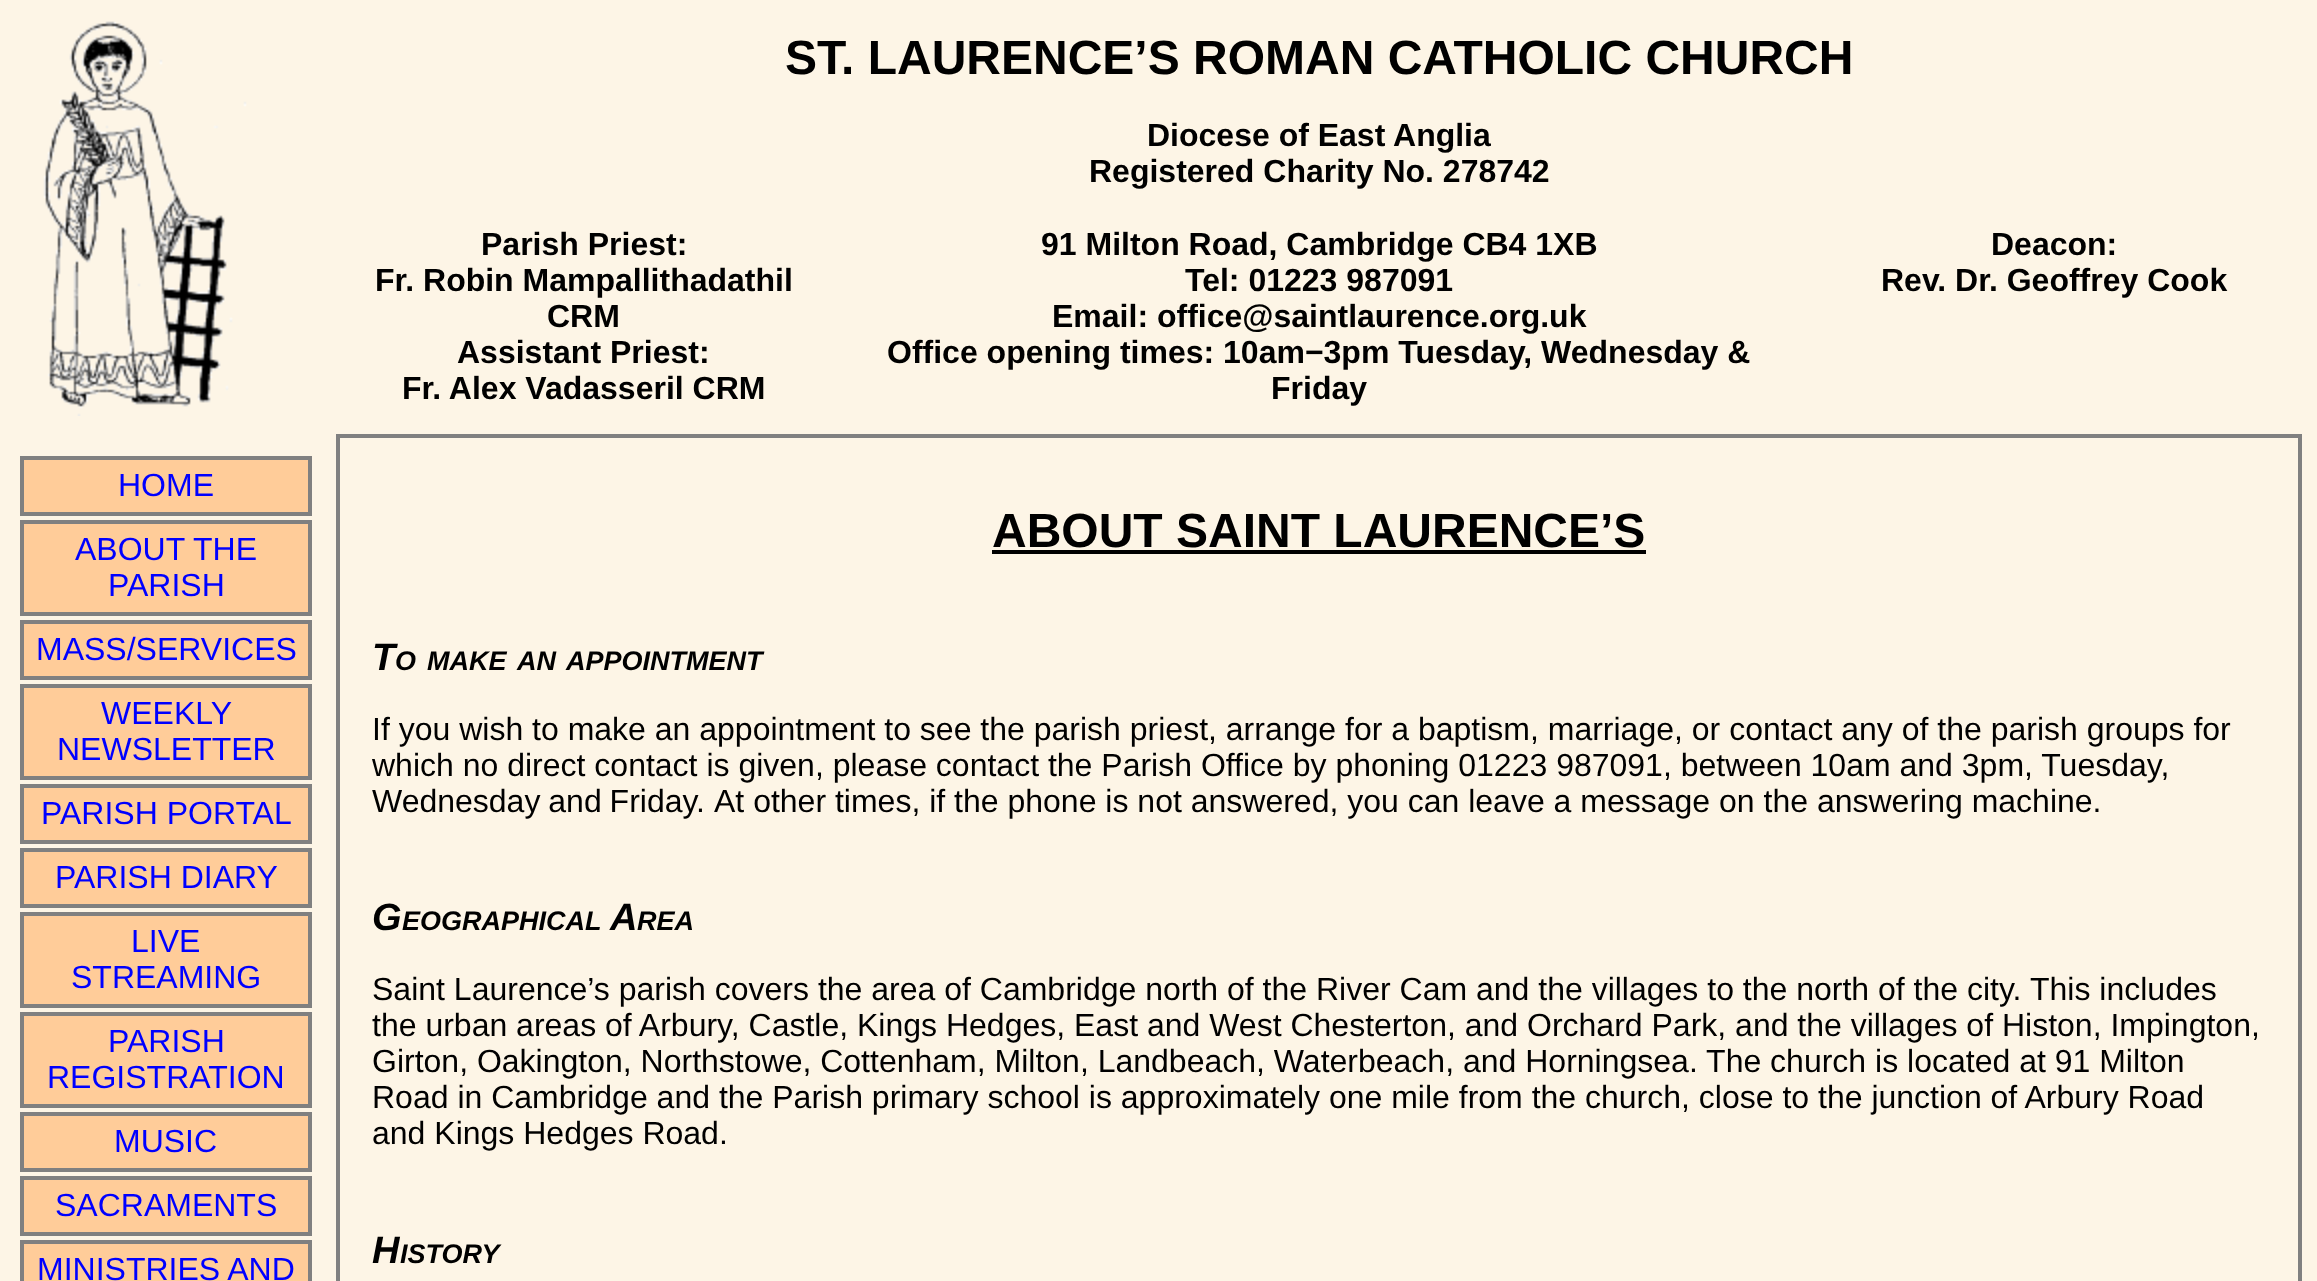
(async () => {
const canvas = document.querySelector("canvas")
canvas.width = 2317
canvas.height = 1281
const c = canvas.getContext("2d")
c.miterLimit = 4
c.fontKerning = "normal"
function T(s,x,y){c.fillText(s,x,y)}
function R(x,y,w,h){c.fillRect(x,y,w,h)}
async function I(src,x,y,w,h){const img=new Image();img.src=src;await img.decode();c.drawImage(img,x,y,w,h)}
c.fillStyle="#fdf5e6"
R(0,0,2317,1281)
await I("1.png",43,21,204,395)
c.fillStyle="#fc9"
c.beginPath()
c.rect(22,458,288,56)
c.fill()
c.strokeStyle="#808080"
c.lineWidth=4
c.stroke()
c.font="32px Liberation Sans"
c.fillStyle="#00f"
T("HOME",118,496)
c.fillStyle="#fc9"
c.beginPath()
c.rect(22,522,288,92)
c.fill()
c.stroke()
c.fillStyle="#00f"
T("ABOUT THE",75,560)
T("PARISH",108,596)
c.fillStyle="#fc9"
c.beginPath()
c.rect(22,622,288,56)
c.fill()
c.stroke()
c.fillStyle="#00f"
T("MASS/SERVICES",36,660)
c.fillStyle="#fc9"
c.beginPath()
c.rect(22,686,288,92)
c.fill()
c.stroke()
c.fillStyle="#00f"
T("WEEKLY",101,724)
T("NEWSLETTER",57,760)
c.fillStyle="#fc9"
c.beginPath()
c.rect(22,786,288,56)
c.fill()
c.stroke()
c.fillStyle="#00f"
T("PARISH PORTAL",41,824)
c.fillStyle="#fc9"
c.beginPath()
c.rect(22,850,288,56)
c.fill()
c.stroke()
c.fillStyle="#00f"
T("PARISH DIARY",55,888)
c.fillStyle="#fc9"
c.beginPath()
c.rect(22,914,288,92)
c.fill()
c.stroke()
c.fillStyle="#00f"
T("LIVE",131,952)
T("STREAMING",71,988)
c.fillStyle="#fc9"
c.beginPath()
c.rect(22,1014,288,92)
c.fill()
c.stroke()
c.fillStyle="#00f"
T("PARISH",108,1052)
T("REGISTRATION",47,1088)
c.fillStyle="#fc9"
c.beginPath()
c.rect(22,1114,288,56)
c.fill()
c.stroke()
c.fillStyle="#00f"
T("MUSIC",114,1152)
c.fillStyle="#fc9"
c.beginPath()
c.rect(22,1178,288,56)
c.fill()
c.stroke()
c.fillStyle="#00f"
T("SACRAMENTS",55,1216)
c.fillStyle="#fc9"
c.beginPath()
c.rect(22,1242,288,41)
c.fill()
c.stroke()
c.fillStyle="#00f"
T("MINISTRIES AND",37,1280)
c.font="bold 48px Liberation Sans"
c.fillStyle="#000"
T("ST. LAURENCE’S ROMAN CATHOLIC CHURCH",785,74)
c.font="bold 32px Liberation Sans"
T("Diocese of East Anglia",1147,146)
T("Registered Charity No. 278742",1089,182)
T("Parish Priest:",481,255)
T("Fr. Robin Mampallithadathil",375,291)
T("CRM",547,327)
T("Assistant Priest:",457,363)
T("Fr. Alex Vadasseril CRM",402,399)
T("91 Milton Road, Cambridge CB4 1XB",1041,255)
T("Tel: 01223 987091",1185,291)
T("Email: office@saintlaurence.org.uk",1052,327)
T("Office opening times: 10am−3pm Tuesday, Wednesday &",887,363)
T("Friday",1271,399)
T("Deacon:",1991,255)
T("Rev. Dr. Geoffrey Cook",1881,291)
c.strokeRect(338,436,1962,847)
c.font="bold 48px Liberation Sans"
T("ABOUT SAINT LAURENCE’S",992,547)
R(992,550,654,4)
c.font="italic bold 38px Liberation Sans"
T("T",372,670)
c.font="italic bold 27px Liberation Sans"
T("O",395,670)
T("MAKE",427,670)
T("AN",517,670)
T("APPOINTMENT",566,670)
c.font="32px Liberation Sans"
T("If you wish to make an appointment to see the parish priest, arrange for a baptism, marriage, or contact any of the parish groups for",372,740)
T("which no direct contact is given, please contact the Parish Office by phoning 01223 987091, between 10am and 3pm, Tuesday,",372,776)
c.wordSpacing="-1px"
T("Wednesday and Friday.",372,812)
c.wordSpacing="0px"
T("At other times, if the phone is not answered, you can leave a message on the answering machine.",714,812)
c.font="italic bold 38px Liberation Sans"
T("G",372,930)
c.font="italic bold 27px Liberation Sans"
T("EOGRAPHICAL",402,930)
c.font="italic bold 38px Liberation Sans"
T("A",610,930)
c.font="italic bold 27px Liberation Sans"
T("REA",637,930)
c.font="32px Liberation Sans"
T("Saint Laurence’s parish covers the area of Cambridge north of the River Cam and the villages to the north of the city.",372,1000)
T("This includes",2030,1000)
T("the urban areas of Arbury, Castle, Kings Hedges, East and West Chesterton, and Orchard Park, and the villages of Histon, Impington,",372,1036)
T("Girton, Oakington, Northstowe, Cottenham, Milton, Landbeach, Waterbeach, and Horningsea. The church is located at 91 Milton",372,1072)
T("Road in Cambridge and the Parish primary school is approximately one mile from the church, close to the junction of Arbury Road",372,1108)
T("and Kings Hedges Road.",372,1144)
c.font="italic bold 38px Liberation Sans"
T("H",372,1263)
c.font="italic bold 27px Liberation Sans"
T("ISTORY",400,1263)
})()
